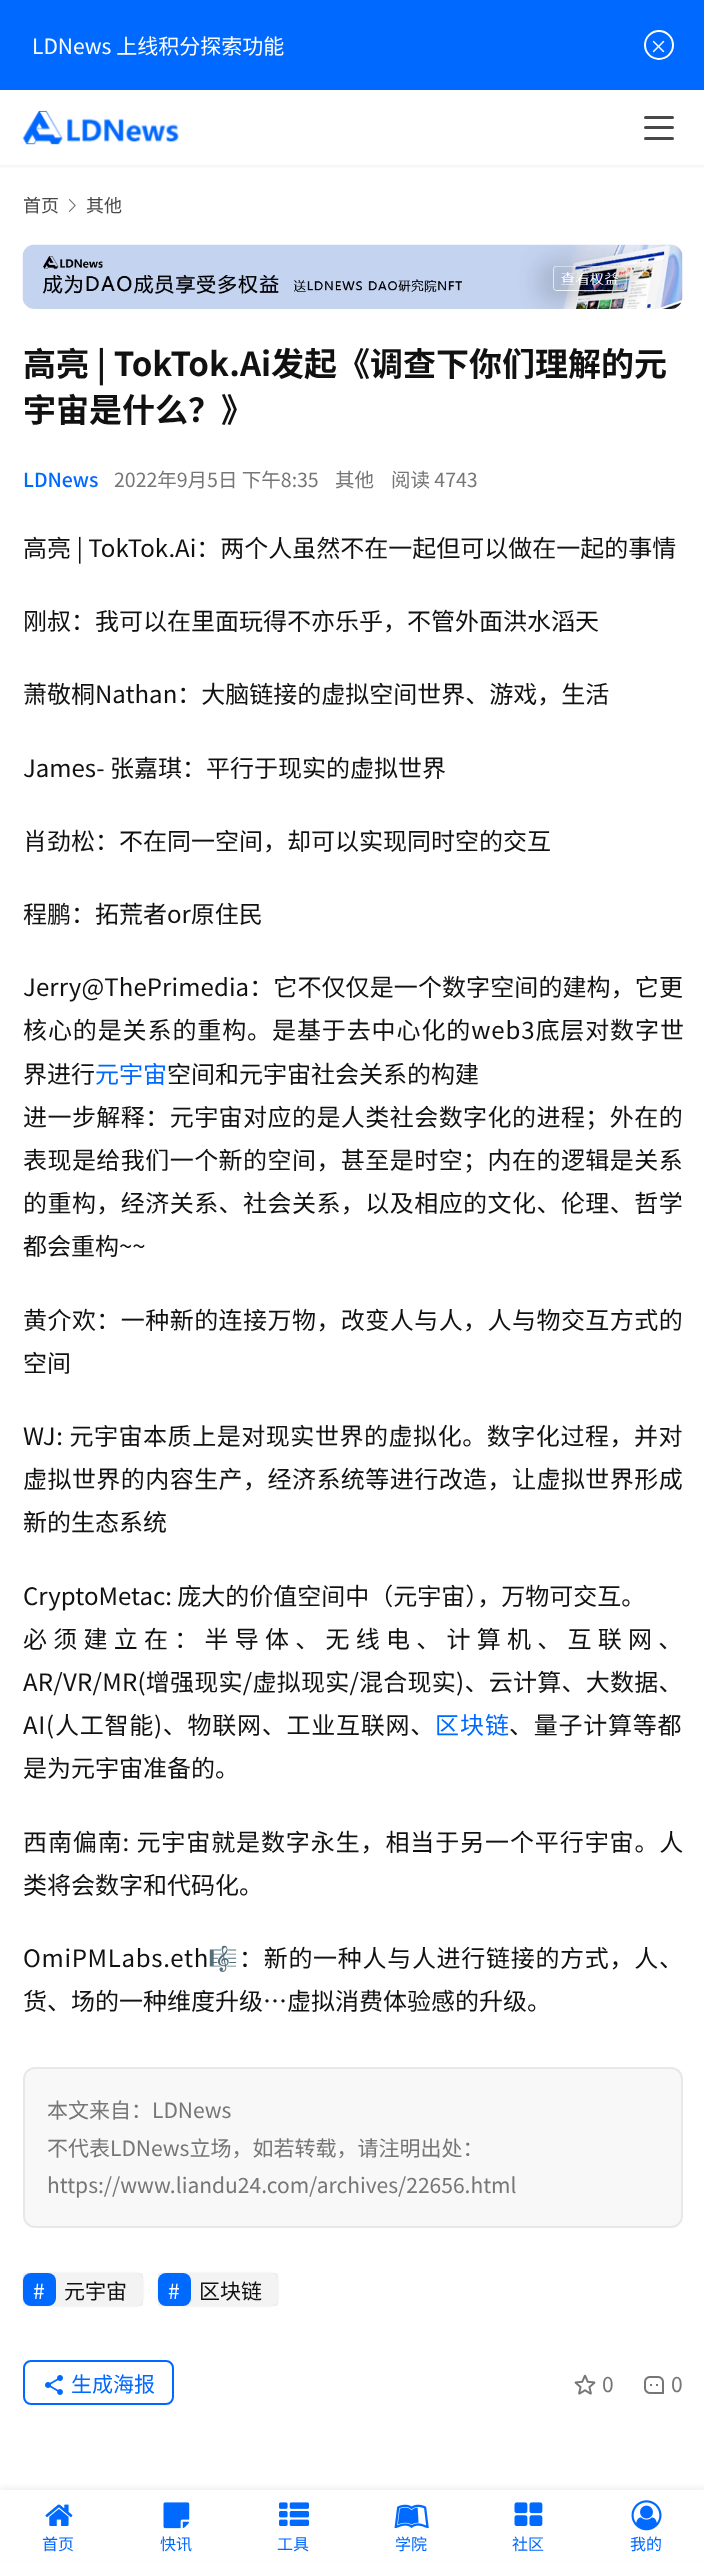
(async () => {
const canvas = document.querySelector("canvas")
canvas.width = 704
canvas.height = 2562
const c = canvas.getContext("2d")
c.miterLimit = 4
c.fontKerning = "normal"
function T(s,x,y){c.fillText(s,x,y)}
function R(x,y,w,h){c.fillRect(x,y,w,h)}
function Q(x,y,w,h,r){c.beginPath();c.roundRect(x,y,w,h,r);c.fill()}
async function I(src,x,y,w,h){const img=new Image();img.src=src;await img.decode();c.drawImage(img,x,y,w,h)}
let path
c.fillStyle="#fff"
R(0,0,704,2562)
c.save()
c.beginPath()
c.rect(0,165,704,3)
c.clip()
c.fillStyle="#1a1a1a0f"
c.filter="blur(2px)"
c.beginPath()
c.rect(-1,89,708,78)
c.fill()
c.filter="none"
c.restore()
c.fillStyle="#0069ff"
R(0,0,704,90)
c.font="21px Noto Sans CJK SC"
c.fillStyle="#fff"
T("LDNews 上线积分探索功能",32,54)
c.beginPath()
c.arc(659,45,14,0,7)
c.strokeStyle="#fff"
c.lineWidth=2
c.stroke()
await I("1.png",652,40,13,13)
await I("2.png",22,110,157,35)
c.fillStyle="#484848"
Q(644,116,30,3,1.5)
Q(644,126,30,3,1.5)
Q(644,137,30,3,1.5)
c.font="18px Noto Sans CJK SC"
T("首页",23,212)
await I("3.png",68,199,8,13)
T("其他",86,212)
await I("4.png",22,244,661,65)
c.font="bold 33px Noto Sans CJK SC"
c.fillStyle="#111"
T("高亮 | TokTok.Ai发起《调查下你们理解的元",23,376)
T("宇宙是什么？》",23,422)
c.font="500 19.5px Noto Sans CJK SC"
c.fillStyle="#0069ff"
T("LDNews",23,487)
c.font="19.5px Noto Sans CJK SC"
c.fillStyle="#767676"
T("2022年9月5日 下午8:35",114,487)
T("其他",335,487)
T("阅读 4743",391,487)
c.font="24px Noto Sans CJK SC"
c.fillStyle="#111"
T("高亮 | TokTok.Ai：两个人虽然不在一起但可以做在一起的事情",23,557)
T("刚叔：我可以在里面玩得不亦乐乎，不管外面洪水滔天",23,630)
T("萧敬桐Nathan：大脑链接的虚拟空间世界、游戏，生活",23,703)
T("James- 张嘉琪：平行于现实的虚拟世界",23,777)
T("肖劲松：不在同一空间，却可以实现同时空的交互",23,850)
T("程鹏：拓荒者or原住民",23,923)
c.letterSpacing="0.1px"
T("Jerry@ThePrimedia：它不仅仅是一个数字空间的建构，它更",23,996)
c.letterSpacing="0.9px"
T("核心的是关系的重构。是基于去中心化的web3底层对数字世",23,1039)
c.letterSpacing="0px"
T("界进行",23,1083)
c.fillStyle="#0069ff"
T("元宇宙",95,1083)
c.fillStyle="#111"
T("空间和元宇宙社会关系的构建",167,1083)
c.letterSpacing="0.45px"
T("进一步解释：元宇宙对应的是人类社会数字化的进程；外在的",23,1126)
T("表现是给我们一个新的空间，甚至是时空；内在的逻辑是关系",23,1169)
T("的重构，经济关系、社会关系，以及相应的文化、伦理、哲学",23,1212)
c.letterSpacing="0px"
T("都会重构~~",23,1255)
c.letterSpacing="0.45px"
T("黄介欢：一种新的连接万物，改变人与人，人与物交互方式的",23,1329)
c.letterSpacing="0px"
T("空间",23,1372)
c.letterSpacing="0.55px"
T("WJ: 元宇宙本质上是对现实世界的虚拟化。数字化过程，并对",23,1445)
c.letterSpacing="0.45px"
T("虚拟世界的内容生产，经济系统等进行改造，让虚拟世界形成",23,1488)
c.letterSpacing="0px"
T("新的生态系统",23,1531)
T("CryptoMetac: 庞大的价值空间中（元宇宙），万物可交互。",23,1605)
c.letterSpacing="6.25px"
T("必须建立在：半导体、无线电、计算机、互联网、",23,1648)
c.letterSpacing="0.25px"
T("AR/VR/MR(增强现实/虚拟现实/混合现实)、云计算、大数据、",23,1691)
c.letterSpacing="0.75px"
T("AI(人工智能)、物联网、工业互联网、",23,1734)
c.letterSpacing="1px"
c.fillStyle="#0069ff"
T("区块链",435,1734)
c.letterSpacing="0.75px"
c.fillStyle="#111"
T("、量子计算等都",509,1734)
c.letterSpacing="0px"
T("是为元宇宙准备的。",23,1777)
c.letterSpacing="0.9px"
T("西南偏南: 元宇宙就是数字永生，相当于另一个平行宇宙。人",23,1851)
c.letterSpacing="0px"
T("类将会数字和代码化。",23,1894)
c.letterSpacing="0.7px"
T("OmiPMLabs.eth",23,1967)
c.font="24px Noto Color Emoji"
T("🎼",208,1967)
c.font="24px Noto Sans CJK SC"
T("：新的一种人与人进行链接的方式，人、",239,1967)
c.letterSpacing="0px"
T("货、场的一种维度升级…虚拟消费体验感的升级。",23,2010)
c.fillStyle="#f8f8f8"
Q(23,2067,660,161,12)
c.beginPath()
c.roundRect(24,2068,658,159,11)
c.strokeStyle="#1a1a1a12"
c.stroke()
c.font="21px Noto Sans CJK SC"
c.fillStyle="#767676"
T("本文来自：LDNews",47,2118)
T("不代表LDNews立场，如若转载，请注明出处：",47,2156)
T("https://www.liandu24.com/archives/22656.html",47,2193)
c.save()
path = new Path2D("M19 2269h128v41h-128zm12 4h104c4.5 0 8 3.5 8 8v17c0 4.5-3.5 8-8 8h-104c-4.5 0-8-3.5-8-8v-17c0-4.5 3.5-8 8-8z")
c.clip(path,"evenodd")
c.fillStyle="#0000001a"
c.filter="blur(1px)"
c.beginPath()
c.roundRect(23,2273,120,33,8)
c.fill()
c.filter="none"
c.restore()
c.fillStyle="#1a1a1a0d"
R(23,2273,120,33)
c.fillStyle="#0069ff"
Q(23,2273,33,33,8)
c.fillStyle="#fff"
T("#",33,2299)
c.fillStyle="#111"
T("元宇宙",64,2299)
c.save()
path = new Path2D("M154 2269h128v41h-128zm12 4h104c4.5 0 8 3.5 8 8v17c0 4.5-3.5 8-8 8h-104c-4.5 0-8-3.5-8-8v-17c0-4.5 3.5-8 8-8z")
c.clip(path,"evenodd")
c.fillStyle="#0000001a"
c.filter="blur(1px)"
c.beginPath()
c.roundRect(158,2273,120,33,8)
c.fill()
c.filter="none"
c.restore()
c.fillStyle="#1a1a1a0d"
R(158,2273,120,33)
c.fillStyle="#0069ff"
Q(158,2273,33,33,8)
c.fillStyle="#fff"
T("#",168,2299)
c.fillStyle="#111"
T("区块链",199,2299)
c.beginPath()
c.roundRect(24,2361,149,43,7)
c.strokeStyle="#0069ff"
c.stroke()
await I("5.png",45,2375,18,20)
c.fillStyle="#0069ff"
T("生成海报",71,2392)
await I("6.png",574,2374,22,21)
c.fillStyle="#767676"
T("0",602,2392)
await I("7.png",644,2376,20,18)
T("0",671,2392)
c.fillStyle="#1a1a1a0f"
c.filter="blur(2px)"
c.beginPath()
c.rect(0,2487,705,72)
c.fill()
c.filter="none"
c.fillStyle="#fff"
R(0,2490,704,71)
await I("8.png",45,2504,28,22)
c.font="16px Noto Sans CJK SC"
c.fillStyle="#0069ff"
T("首页",42,2550)
await I("9.png",163,2502,27,27)
T("快讯",160,2550)
await I("10.png",279,2502,30,24)
T("工具",277,2550)
await I("11.png",394,2504,35,25)
T("学院",395,2550)
await I("12.png",514,2502,29,24)
T("社区",512,2550)
await I("13.png",631,2500,31,31)
T("我的",630,2550)
})()
